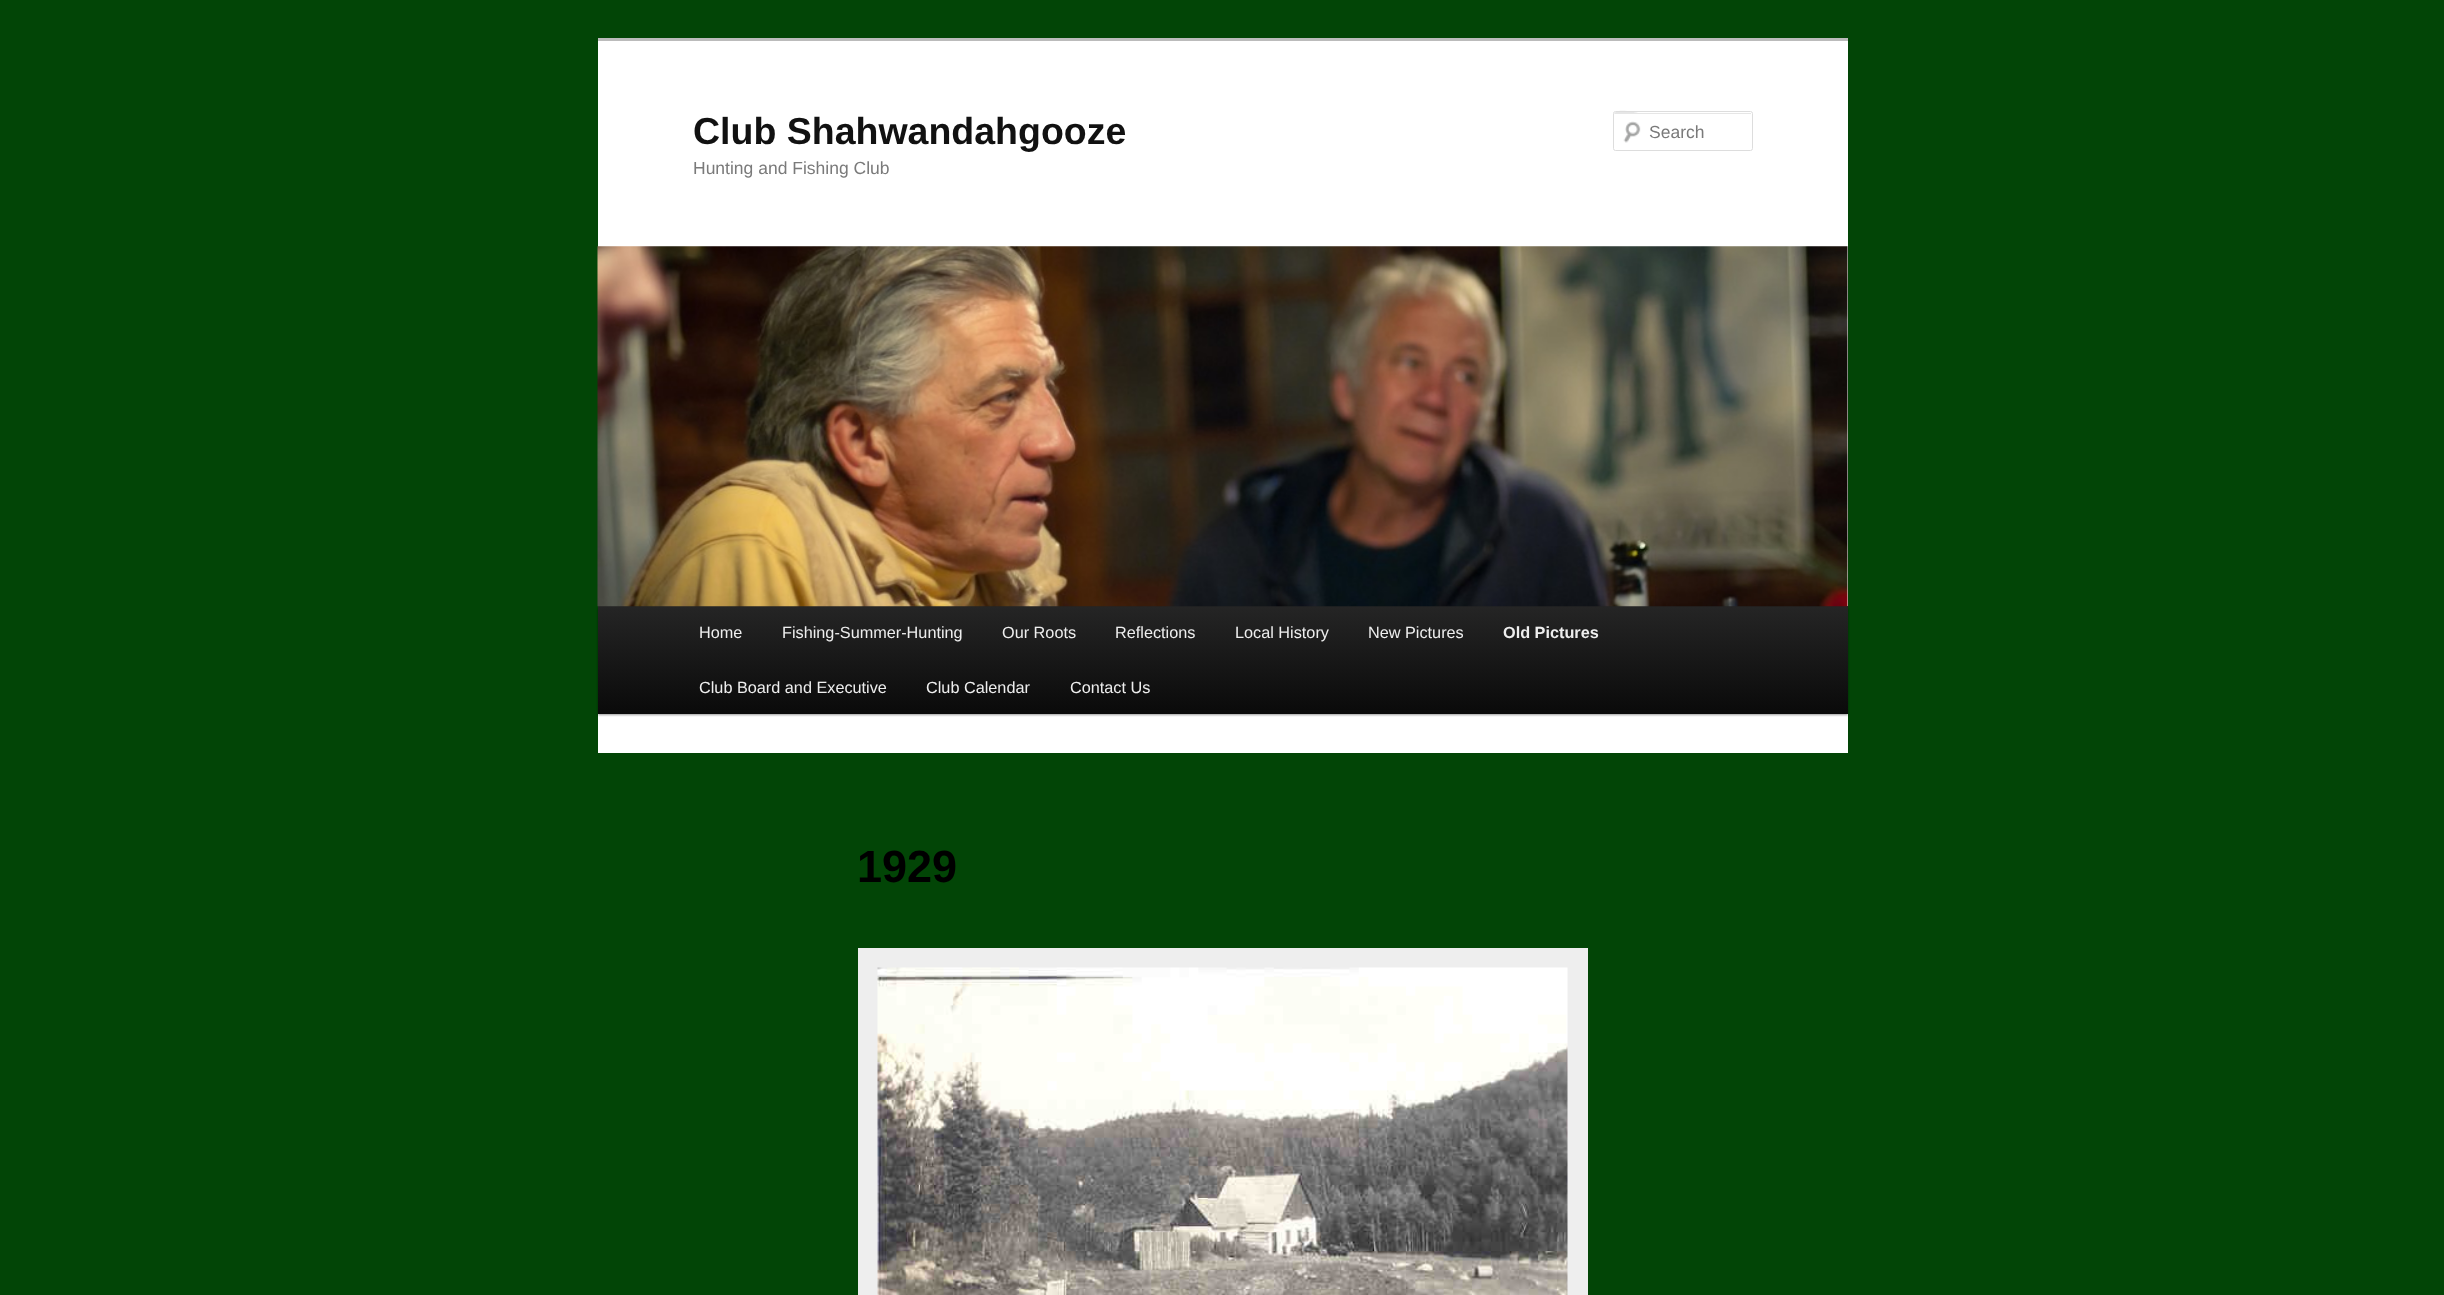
(async () => {
const canvas = document.querySelector("canvas")
canvas.width = 2444
canvas.height = 1295
const c = canvas.getContext("2d")
c.miterLimit = 4
c.fontKerning = "normal"
function T(s,x,y){c.fillText(s,x,y)}
function R(x,y,w,h){c.fillRect(x,y,w,h)}
async function I(src,x,y,w,h){const img=new Image();img.src=src;await img.decode();c.drawImage(img,x,y,w,h)}
let gradient, path
c.fillStyle="#024506"
R(0,0,2444,1295)
c.fillStyle="#fff"
R(598,41,1250,712)
c.fillStyle="#bbb"
R(598,38,1250,3)
c.font="bold 37.5px Liberation Sans"
c.fillStyle="#111"
T("Club Shahwandahgooze",693,144)
c.font="17.5px Liberation Sans"
c.fillStyle="#7a7a7a"
T("Hunting and Fishing Club",693,174)
await I("1.png",1623,121,18,22)
c.fillStyle="#e6e6e6"
path = new Path2D("M1615 114h135c1 0 1 0 1 1v-2h-113c-1 0-24-6-24 2c0-1 0-1 1-1z")
c.fill(path)
c.beginPath()
c.roundRect(1613.5,111.5,139,39,2)
c.strokeStyle="#ddd"
c.stroke()
c.fillStyle="#7a7a7a"
T("Search",1649,138)
c.fillStyle="#00000066"
c.filter="blur(1px)"
c.beginPath()
c.rect(598,608,1250,107)
c.fill()
c.filter="none"
gradient = c.createLinearGradient(1223,606,1223,714)
gradient.addColorStop(0,"#252525")
gradient.addColorStop(1,"#0a0a0a")
c.fillStyle = gradient
R(598,606,1250,108)
await I("2.png",597,246,1251,361)
c.font="16.25px Liberation Sans"
c.fillStyle="#eee"
T("Home",699,638)
T("Fishing-Summer-Hunting",782,638)
T("Our Roots",1002,638)
T("Reflections",1115,638)
T("Local History",1235,638)
T("New Pictures",1368,638)
c.font="bold 16.25px Liberation Sans"
T("Old Pictures",1503,638)
c.font="16.25px Liberation Sans"
T("Club Board and Executive",699,693)
T("Club Calendar",926,693)
T("Contact Us",1070,693)
c.font="bold 45px Liberation Sans"
c.fillStyle="#000"
T("1929",857,882)
c.fillStyle="#eee"
R(858,948,730,347)
await I("3.png",877,967,691,328)
})()
